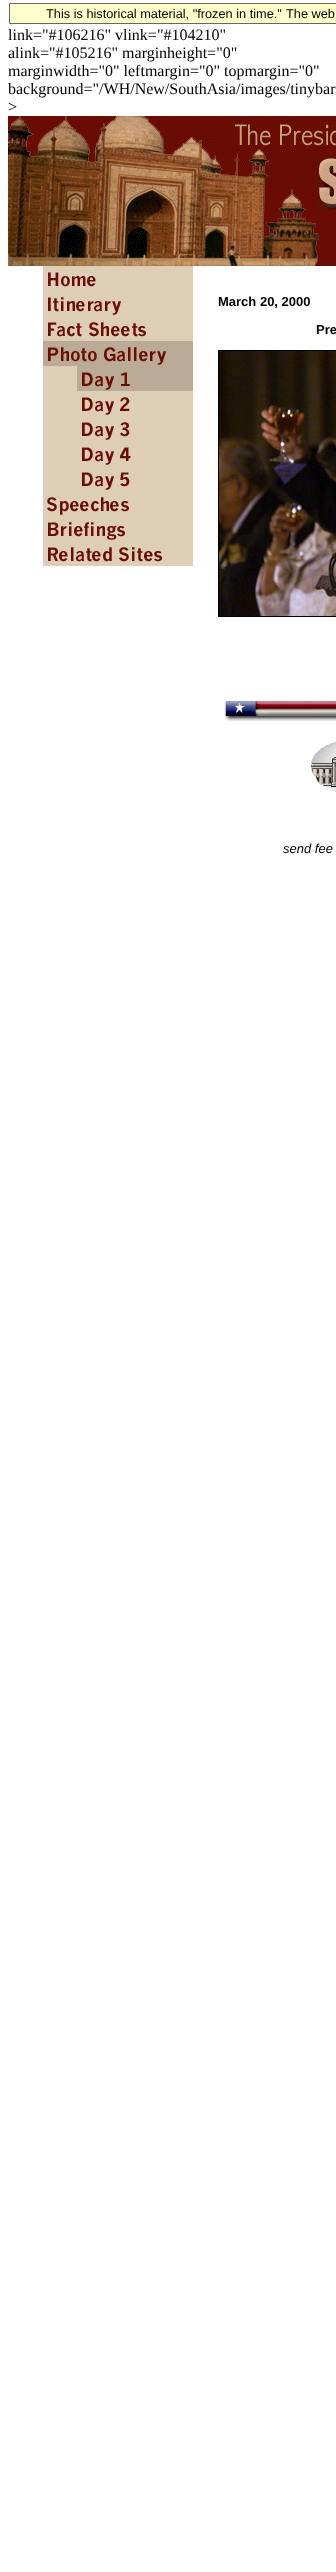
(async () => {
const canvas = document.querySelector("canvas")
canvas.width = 336
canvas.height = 2572
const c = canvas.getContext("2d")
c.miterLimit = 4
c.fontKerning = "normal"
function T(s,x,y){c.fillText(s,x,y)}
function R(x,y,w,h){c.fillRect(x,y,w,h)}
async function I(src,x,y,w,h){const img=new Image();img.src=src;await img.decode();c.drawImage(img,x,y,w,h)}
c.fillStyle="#fff"
R(0,0,336,2572)
c.fillStyle="#ffc"
c.beginPath()
c.rect(9.5,3.5,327,20)
c.fill()
c.strokeStyle="#666"
c.stroke()
c.font="12.75px Liberation Sans"
c.fillStyle="#000"
T("This is historical material, \"frozen in time.\"",46,18)
T("The web",286,18)
c.font="16px Liberation Serif"
T("link=\"#106216\" vlink=\"#104210\"",8,40)
T("alink=\"#105216\" marginheight=\"0\"",8,58)
T("marginwidth=\"0\" leftmargin=\"0\" topmargin=\"0\"",8,76)
T("background=\"/WH/New/SouthAsia/images/tinybar",8,94)
T(">",8,112)
await I("1.png",8,116,328,150)
await I("2.png",43,266,150,25)
await I("3.png",43,291,150,25)
await I("4.png",43,316,150,25)
await I("5.png",43,341,150,25)
await I("6.png",43,366,150,25)
await I("7.png",43,391,150,25)
await I("8.png",43,416,150,25)
await I("9.png",43,441,150,25)
await I("10.png",43,466,150,25)
await I("11.png",43,491,150,25)
await I("12.png",43,516,150,25)
await I("13.png",43,541,150,25)
c.font="bold 13px Liberation Sans"
T("March 20, 2000",218,306)
T("Pre",316,334)
c.strokeStyle="#000"
c.strokeRect(218.5,350.5,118,266)
await I("14.png",219,351,117,265)
await I("15.png",224,701,112,21)
await I("16.png",310,742,26,50)
c.font="italic 13px Liberation Sans"
T("send fee",283,853)
})()
